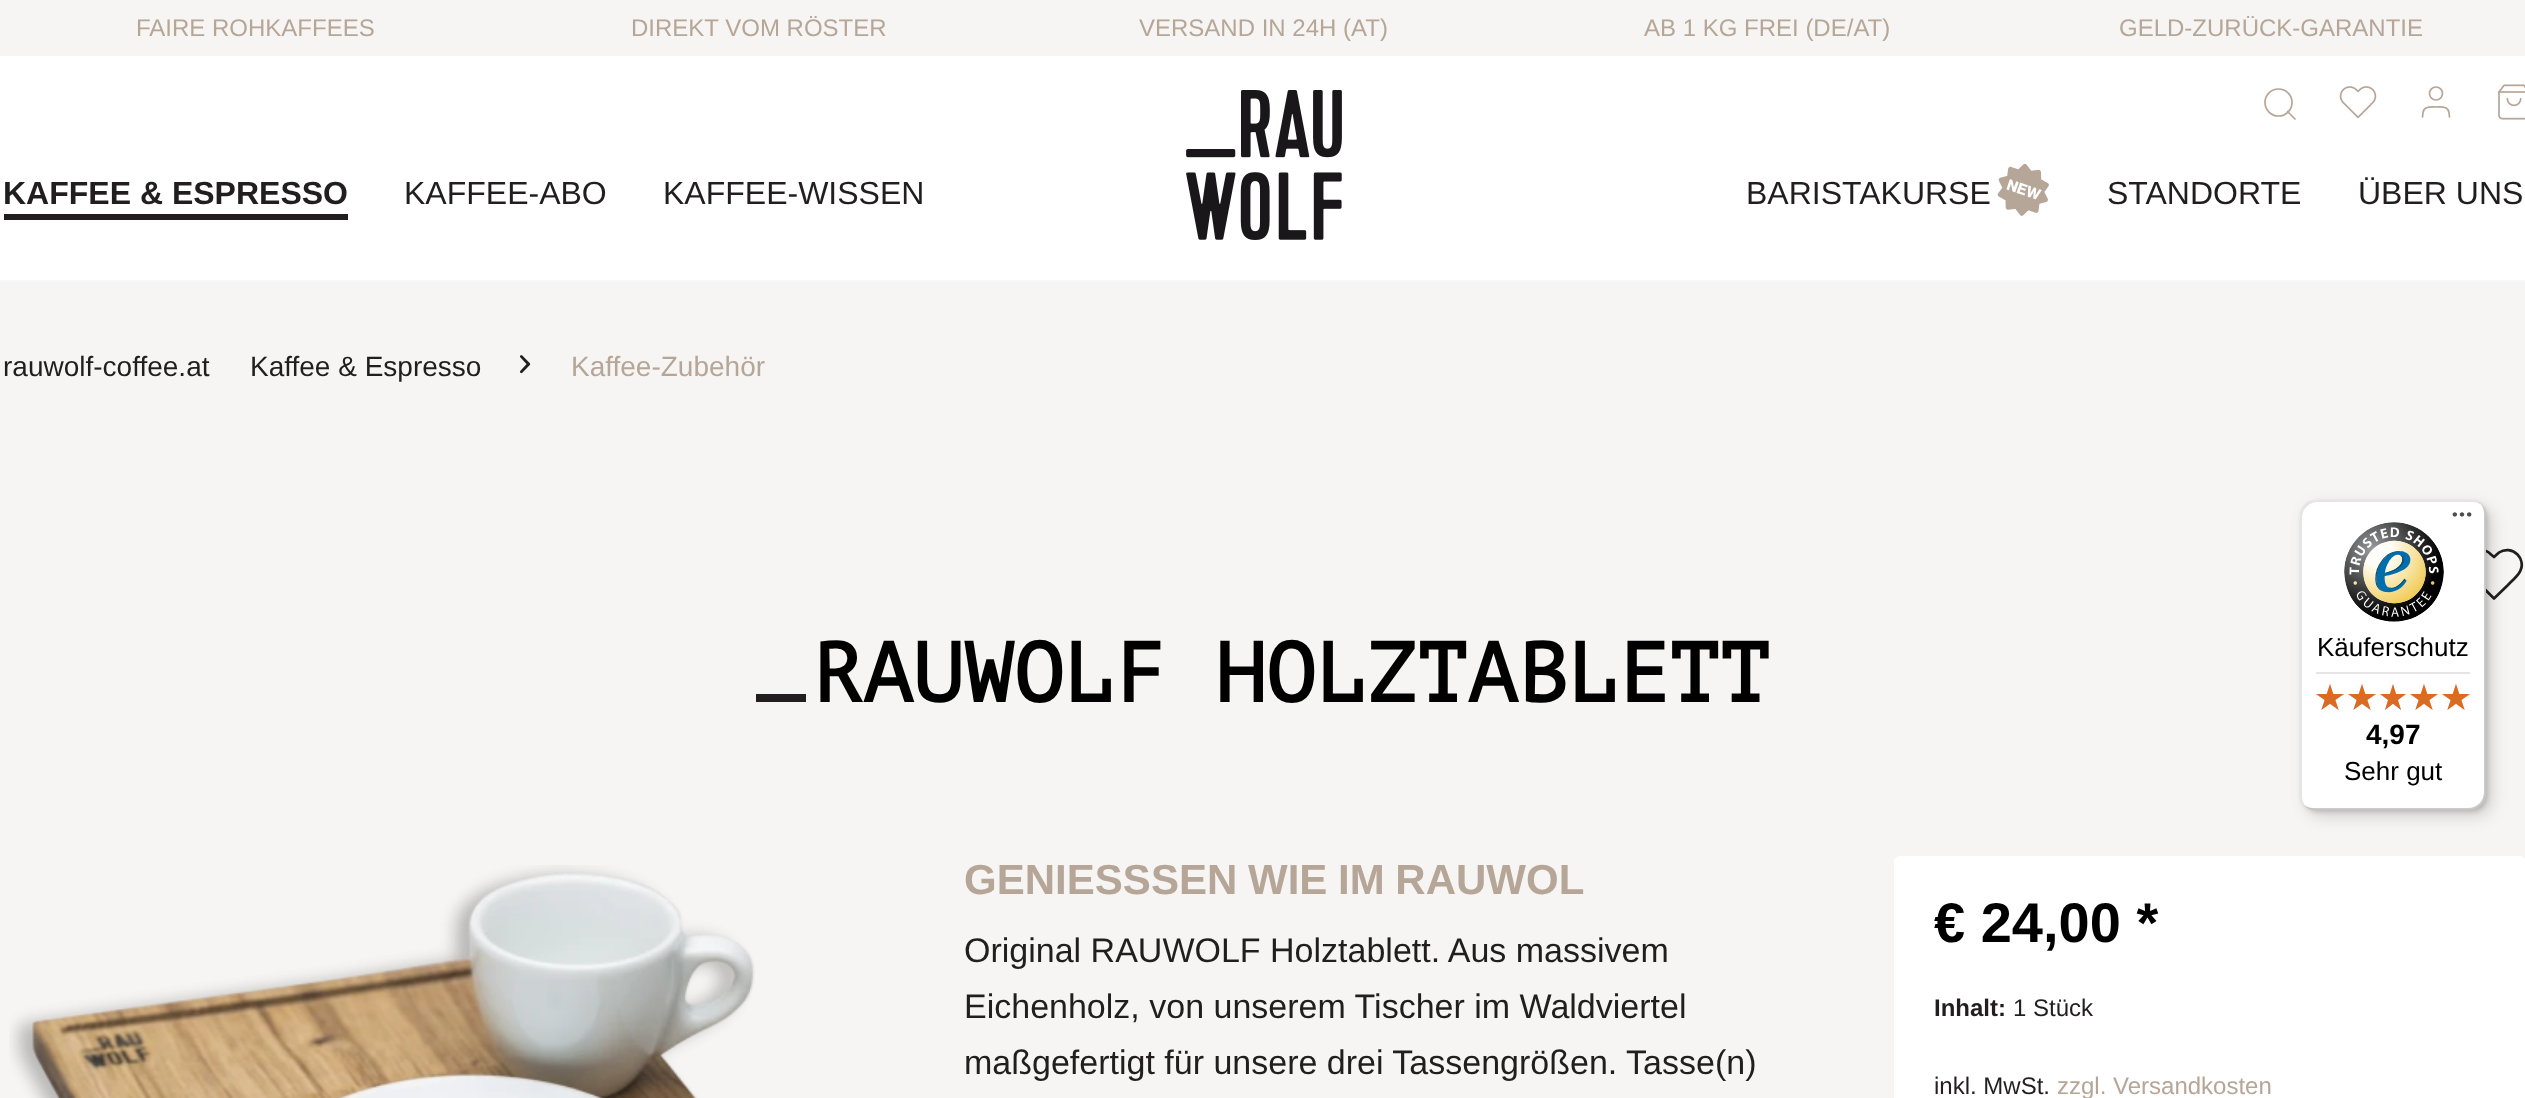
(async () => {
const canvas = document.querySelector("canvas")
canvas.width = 2525
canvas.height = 1098
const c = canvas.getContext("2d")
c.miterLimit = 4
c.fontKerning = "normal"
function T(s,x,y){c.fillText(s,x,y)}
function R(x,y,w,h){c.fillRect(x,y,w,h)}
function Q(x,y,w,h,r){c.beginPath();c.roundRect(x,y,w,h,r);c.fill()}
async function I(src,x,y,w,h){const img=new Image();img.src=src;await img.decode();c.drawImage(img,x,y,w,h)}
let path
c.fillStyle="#f6f5f3"
R(0,0,2525,1098)
c.fillStyle="#fff"
R(0,56,2525,224)
c.fillStyle="#f8f8f8"
R(0,280,2525,2)
c.font="24px Liberation Sans"
c.fillStyle="#b6a697"
T("FAIRE ROHKAFFEES",136,36)
T("DIREKT VOM RÖSTER",631,36)
T("VERSAND IN 24H (AT)",1139,36)
T("AB 1 KG FREI (DE/AT)",1644,36)
T("GELD-ZURÜCK-GARANTIE",2119,36)
await I("1.png",1186,90,156,150)
c.beginPath()
c.arc(2278.5,102.5,13.5,0,7)
c.strokeStyle="#b6a697"
c.lineWidth=1.7
c.stroke()
path = new Path2D("M2295 119l-7.5-7.5")
c.lineCap="round"
c.lineJoin="round"
c.stroke(path)
await I("2.png",2339,86,38,33)
path = new Path2D("M2449.5 117l-.5-4.5c-1-6.5-8-5.5-13-5.5c-5 0-12-1-13 5.5l-.5 4.5")
c.stroke(path)
c.beginPath()
c.arc(2436,93.5,6.5,0,7)
c.stroke()
await I("3.png",2498,84,27,36)
c.font="bold 32px Liberation Sans"
c.fillStyle="#221e1f"
T("KAFFEE & ESPRESSO",3,204)
R(4,214,344,6)
c.font="32px Liberation Sans"
T("KAFFEE-ABO",404,204)
T("KAFFEE-WISSEN",663,204)
T("BARISTAKURSE",1746,204)
await I("4.png",1997,163,52,53)
T("STANDORTE",2107,204)
T("ÜBER UNS",2358,204)
c.font="28px Liberation Sans"
T("rauwolf-coffee.at",3,376)
T("Kaffee & Espresso",250,376)
await I("5.png",520,355,11,19)
c.fillStyle="#b6a697"
T("Kaffee-Zubehör",571,376)
path = new Path2D("M2517.5 554.5c-5-5-12.5-6-18.5-2l-5 4.5l-3-2.5c-5.5-6-15-6-20.5 0c-6 5.5-6 15 0 20.5l23.5 23.5l14-13.5c6-6.5 15.5-13 13.5-23c-.5-3-2-5.5-4-7.5z")
c.strokeStyle="#221e1f"
c.lineWidth=2.7
c.stroke(path)
c.fillStyle="#221e1f"
R(756,694,50,8)
c.font="bold 84px PT Mono"
c.fillStyle="#000"
T("RAUWOLF HOLZTABLETT",812,702)
await I("6.png",9,865,746,233)
c.font="bold 42px Liberation Sans"
c.fillStyle="#b6a697"
T("GENIESS",964,894)
c.wordSpacing="-1px"
T("SEN WIE IM RAUWOL",1151,894)
c.wordSpacing="0px"
c.font="34px Liberation Sans"
c.fillStyle="#221e1f"
T("Original RAUWOLF Holztablett. Aus massivem",964,962)
T("Eichenholz, von unserem Tischer im Waldviertel",964,1018)
T("maßgefertigt für unsere drei Tassengrößen. Tasse(n)",964,1074)
c.fillStyle="#fff"
Q(1894,856,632,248,6)
c.font="bold 56px Liberation Sans"
c.fillStyle="#000"
T("€ 24,00 *",1934,942)
c.font="bold 24px Liberation Sans"
c.fillStyle="#221e1f"
T("Inhalt:",1934,1016)
c.font="24px Liberation Sans"
T("1 Stück",2013,1016)
T("inkl. MwSt.",1934,1094)
c.fillStyle="#b6a697"
T("zzgl. Versandkosten",2057,1094)
c.fillStyle="#00000026"
c.filter="blur(8px)"
c.beginPath()
c.roundRect(2306,506,186,310,16)
c.fill()
c.filter="none"
c.filter="blur(2px)"
c.beginPath()
c.roundRect(2302,502,186,310,16)
c.fill()
c.filter="none"
c.fillStyle="#fff"
Q(2300,500,186,310,16)
c.fillStyle="#0000001a"
path = new Path2D("M2318 502h154c4 0 7 1 10 3c-3-3-7-5-12-5h-154c-9 0-16 7-16 16v278c0 5 2 9 5 12c-2-3-3-6-3-10v-278c0-9 7-16 16-16z")
c.fill(path)
c.fillStyle="#00000033"
path = new Path2D("M2304 805c3 3 7 5 12 5h154c9 0 16-7 16-16v-278c0-5-2-9-5-12c2 3 3 6 3 10v278c0 9-7 16-16 16h-154c-4 0-7-1-10-3z")
c.fill(path)
c.fillStyle="#32323233"
path = new Path2D("M2305 805c3 3 7 5 11 5h154c9 0 16-7 16-16v-278c0-4-2-8-5-11c3 3 4 6 4 10v278c0 9-7 16-16 16h-154c-4 0-7-1-10-4z")
c.fill(path)
c.fillStyle="#ffffff4d"
path = new Path2D("M2305 805c3 3 7 5 11 5h154c9 0 16-7 16-16v-278c0-4-2-8-5-11c3 3 4 6 4 10v278c0 9-7 16-16 16h-154c-4 0-7-1-10-4z")
c.fill(path)
await I("7.png",2452,512,20,5)
await I("8.png",2344,522,100,100)
c.font="26px Liberation Sans"
c.fillStyle="#000"
T("Käuferschutz",2317,656)
c.fillStyle="#e5e5e5"
R(2316,672,154,2)
await I("9.png",2316,684,28,26)
await I("9.png",2348,684,28,26)
await I("10.png",2380,684,26,26)
await I("9.png",2410,684,28,26)
await I("9.png",2442,684,28,26)
await I("11.png",2316,684,28,26)
await I("11.png",2348,684,28,26)
await I("12.png",2380,684,26,26)
await I("11.png",2410,684,28,26)
await I("11.png",2442,684,28,26)
c.font="bold 28px Liberation Sans"
c.fillStyle="#000"
T("4,97",2366,744)
c.font="26px Liberation Sans"
T("Sehr gut",2344,780)
})()
